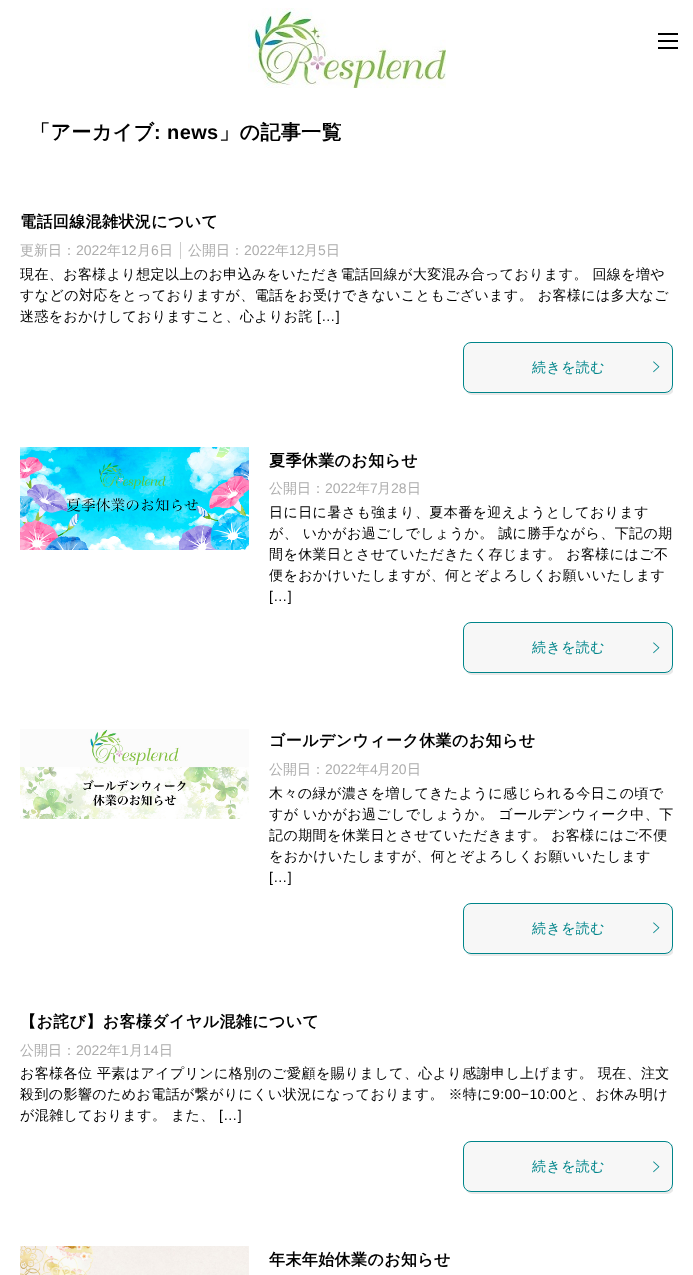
(async () => {
const canvas = document.querySelector("canvas")
canvas.width = 693
canvas.height = 1275
const c = canvas.getContext("2d")
c.miterLimit = 4
c.fontKerning = "normal"
function T(s,x,y){c.fillText(s,x,y)}
function R(x,y,w,h){c.fillRect(x,y,w,h)}
async function I(src,x,y,w,h){const img=new Image();img.src=src;await img.decode();c.drawImage(img,x,y,w,h)}
let path
c.fillStyle="#fff"
R(0,0,693,1275)
await I("1.png",248,8,198,80)
c.fillStyle="#000"
R(658,40,20,2)
R(658,33,20,2)
R(658,47,20,2)
c.letterSpacing="0.4px"
c.font="bold 20px WenQuanYi Zen Hei"
T("「アーカイブ",30,139)
c.font="bold 20px Liberation Sans"
T(": news",154,139)
c.font="bold 20px WenQuanYi Zen Hei"
T("」の記事一覧",219,139)
c.font="bold 16px WenQuanYi Zen Hei"
T("電話回線混雑状況について",20,227)
c.letterSpacing="0px"
c.font="500 14px WenQuanYi Zen Hei"
c.fillStyle="#adadad"
T("更新日：",20,255)
c.font="14px Liberation Sans"
T("2022",76,255)
c.font="500 14px WenQuanYi Zen Hei"
T("年",107,255)
c.font="14px Liberation Sans"
T("12",121,255)
c.font="500 14px WenQuanYi Zen Hei"
T("月",137,255)
c.font="14px Liberation Sans"
T("6",151,255)
c.font="500 14px WenQuanYi Zen Hei"
T("日",159,255)
c.fillStyle="#ccc"
R(180,242,1,17)
c.fillStyle="#adadad"
T("公開日：",188,255)
c.font="14px Liberation Sans"
T("2022",244,255)
c.font="500 14px WenQuanYi Zen Hei"
T("年",275,255)
c.font="14px Liberation Sans"
T("12",289,255)
c.font="500 14px WenQuanYi Zen Hei"
T("月",304,255)
c.font="14px Liberation Sans"
T("5",318,255)
c.font="500 14px WenQuanYi Zen Hei"
T("日",326,255)
c.letterSpacing="0.4px"
c.fillStyle="#000"
T("現在、お客様より想定以上のお申込みをいただき電話回線が大変混み合っております。 回線を増や",20,279)
T("すなどの対応をとっておりますが、電話をお受けできないこともございます。 お客様には多大なご",20,300)
T("迷惑をおかけしておりますこと、心よりお詫",20,321)
c.font="14px Liberation Sans"
T("[…]",317,321)
c.save()
c.beginPath()
c.rect(20,208,653,199)
c.clip()
c.fillStyle="#e9e9e9"
path = new Path2D("M466 392c2 2 4 3 7 3h194c4 0 8-4 8-8v-35c0-3-1-5-3-7c0 2 1 3 1 5v35c0 4-4 8-8 8h-194c-2 0-3-1-5-1z")
c.fill(path)
c.restore()
c.fillStyle="#f7f7f7"
c.beginPath()
c.roundRect(463.5,342.5,209,50,7.5)
c.fill()
c.strokeStyle="#00858a"
c.stroke()
c.font="500 14px WenQuanYi Zen Hei"
c.fillStyle="#00858a"
T("続きを読む",532,372)
await I("2.png",653,361,7,12)
await I("3.png",20,447,229,103)
c.font="bold 16px WenQuanYi Zen Hei"
c.fillStyle="#000"
T("夏季休業のお知らせ",269,466)
c.letterSpacing="0px"
c.font="500 14px WenQuanYi Zen Hei"
c.fillStyle="#adadad"
T("公開日：",269,493)
c.font="14px Liberation Sans"
T("2022",325,493)
c.font="500 14px WenQuanYi Zen Hei"
T("年",356,493)
c.font="14px Liberation Sans"
T("7",370,493)
c.font="500 14px WenQuanYi Zen Hei"
T("月",377,493)
c.font="14px Liberation Sans"
T("28",391,493)
c.font="500 14px WenQuanYi Zen Hei"
T("日",407,493)
c.letterSpacing="0.4px"
c.fillStyle="#000"
T("日に日に暑さも強まり、夏本番を迎えようとしております",269,517)
T("が、 いかがお過ごしでしょうか。 誠に勝手ながら、下記の期",269,538)
T("間を休業日とさせていただきたく存じます。 お客様にはご不",269,559)
T("便をおかけいたしますが、何とぞよろしくお願いいたします",269,580)
c.font="14px Liberation Sans"
T("[…]",269,601)
c.save()
c.beginPath()
c.rect(269,447,404,240)
c.clip()
c.fillStyle="#e9e9e9"
path = new Path2D("M466 672c2 2 4 3 7 3h194c4 0 8-4 8-8v-35c0-3-1-5-3-7c0 2 1 3 1 5v35c0 4-4 8-8 8h-194c-2 0-3-1-5-1z")
c.fill(path)
c.restore()
c.fillStyle="#f7f7f7"
c.beginPath()
c.roundRect(463.5,622.5,209,50,7.5)
c.fill()
c.stroke()
c.font="500 14px WenQuanYi Zen Hei"
c.fillStyle="#00858a"
T("続きを読む",532,652)
await I("2.png",653,642,7,12)
await I("4.png",20,729,229,90)
c.font="bold 16px WenQuanYi Zen Hei"
c.fillStyle="#000"
T("ゴールデンウィーク休業のお知らせ",269,746)
c.letterSpacing="0px"
c.font="500 14px WenQuanYi Zen Hei"
c.fillStyle="#adadad"
T("公開日：",269,774)
c.font="14px Liberation Sans"
T("2022",325,774)
c.font="500 14px WenQuanYi Zen Hei"
T("年",356,774)
c.font="14px Liberation Sans"
T("4",370,774)
c.font="500 14px WenQuanYi Zen Hei"
T("月",377,774)
c.font="14px Liberation Sans"
T("20",391,774)
c.font="500 14px WenQuanYi Zen Hei"
T("日",407,774)
c.letterSpacing="0.4px"
c.fillStyle="#000"
T("木々の緑が濃さを増してきたように感じられる今日この頃で",269,798)
T("すが いかがお過ごしでしょうか。 ゴールデンウィーク中、下",269,819)
T("記の期間を休業日とさせていただきます。 お客様にはご不便",269,840)
T("をおかけいたしますが、何とぞよろしくお願いいたします",269,861)
c.font="14px Liberation Sans"
T("[…]",269,882)
c.save()
c.beginPath()
c.rect(269,727,404,241)
c.clip()
c.fillStyle="#e9e9e9"
path = new Path2D("M466 953c2 2 4 3 7 3h194c4 0 8-4 8-8v-35c0-3-1-5-3-7c0 2 1 3 1 5v35c0 4-4 8-8 8h-194c-2 0-3-1-5-1z")
c.fill(path)
c.restore()
c.fillStyle="#f7f7f7"
c.beginPath()
c.roundRect(463.5,903.5,209,50,7.5)
c.fill()
c.stroke()
c.font="500 14px WenQuanYi Zen Hei"
c.fillStyle="#00858a"
T("続きを読む",532,933)
await I("2.png",653,922,7,12)
c.font="bold 16px WenQuanYi Zen Hei"
c.fillStyle="#000"
T("【お詫び】お客様ダイヤル混雑について",20,1027)
c.letterSpacing="0px"
c.font="500 14px WenQuanYi Zen Hei"
c.fillStyle="#adadad"
T("公開日：",20,1055)
c.font="14px Liberation Sans"
T("2022",76,1055)
c.font="500 14px WenQuanYi Zen Hei"
T("年",107,1055)
c.font="14px Liberation Sans"
T("1",121,1055)
c.font="500 14px WenQuanYi Zen Hei"
T("月",129,1055)
c.font="14px Liberation Sans"
T("14",143,1055)
c.font="500 14px WenQuanYi Zen Hei"
T("日",159,1055)
c.letterSpacing="0.4px"
c.fillStyle="#000"
T("お客様各位 平素はアイプリンに格別のご愛顧を賜りまして、心より感謝申し上げます。 現在、注文",20,1078)
T("殺到の影響のためお電話が繋がりにくい状況になっております。 ※特に",20,1099)
c.font="14px Liberation Sans"
T("9:00−10:00",492,1099)
c.font="500 14px WenQuanYi Zen Hei"
T("と、お休み明け",566,1099)
T("が混雑しております。 また、",20,1120)
c.font="14px Liberation Sans"
T("[…]",219,1120)
c.save()
c.beginPath()
c.rect(20,1008,653,198)
c.clip()
c.fillStyle="#e9e9e9"
path = new Path2D("M466 1191c2 2 4 3 7 3h194c4 0 8-4 8-8v-35c0-3-1-5-3-7c0 2 1 3 1 5v35c0 4-4 8-8 8h-194c-2 0-3-1-5-1z")
c.fill(path)
c.restore()
c.fillStyle="#f7f7f7"
c.beginPath()
c.roundRect(463.5,1141.5,209,50,7.5)
c.fill()
c.stroke()
c.font="500 14px WenQuanYi Zen Hei"
c.fillStyle="#00858a"
T("続きを読む",532,1171)
await I("2.png",653,1161,7,12)
await I("5.png",20,1246,229,29)
c.font="bold 16px WenQuanYi Zen Hei"
c.fillStyle="#000"
T("年末年始休業のお知らせ",269,1265)
})()
